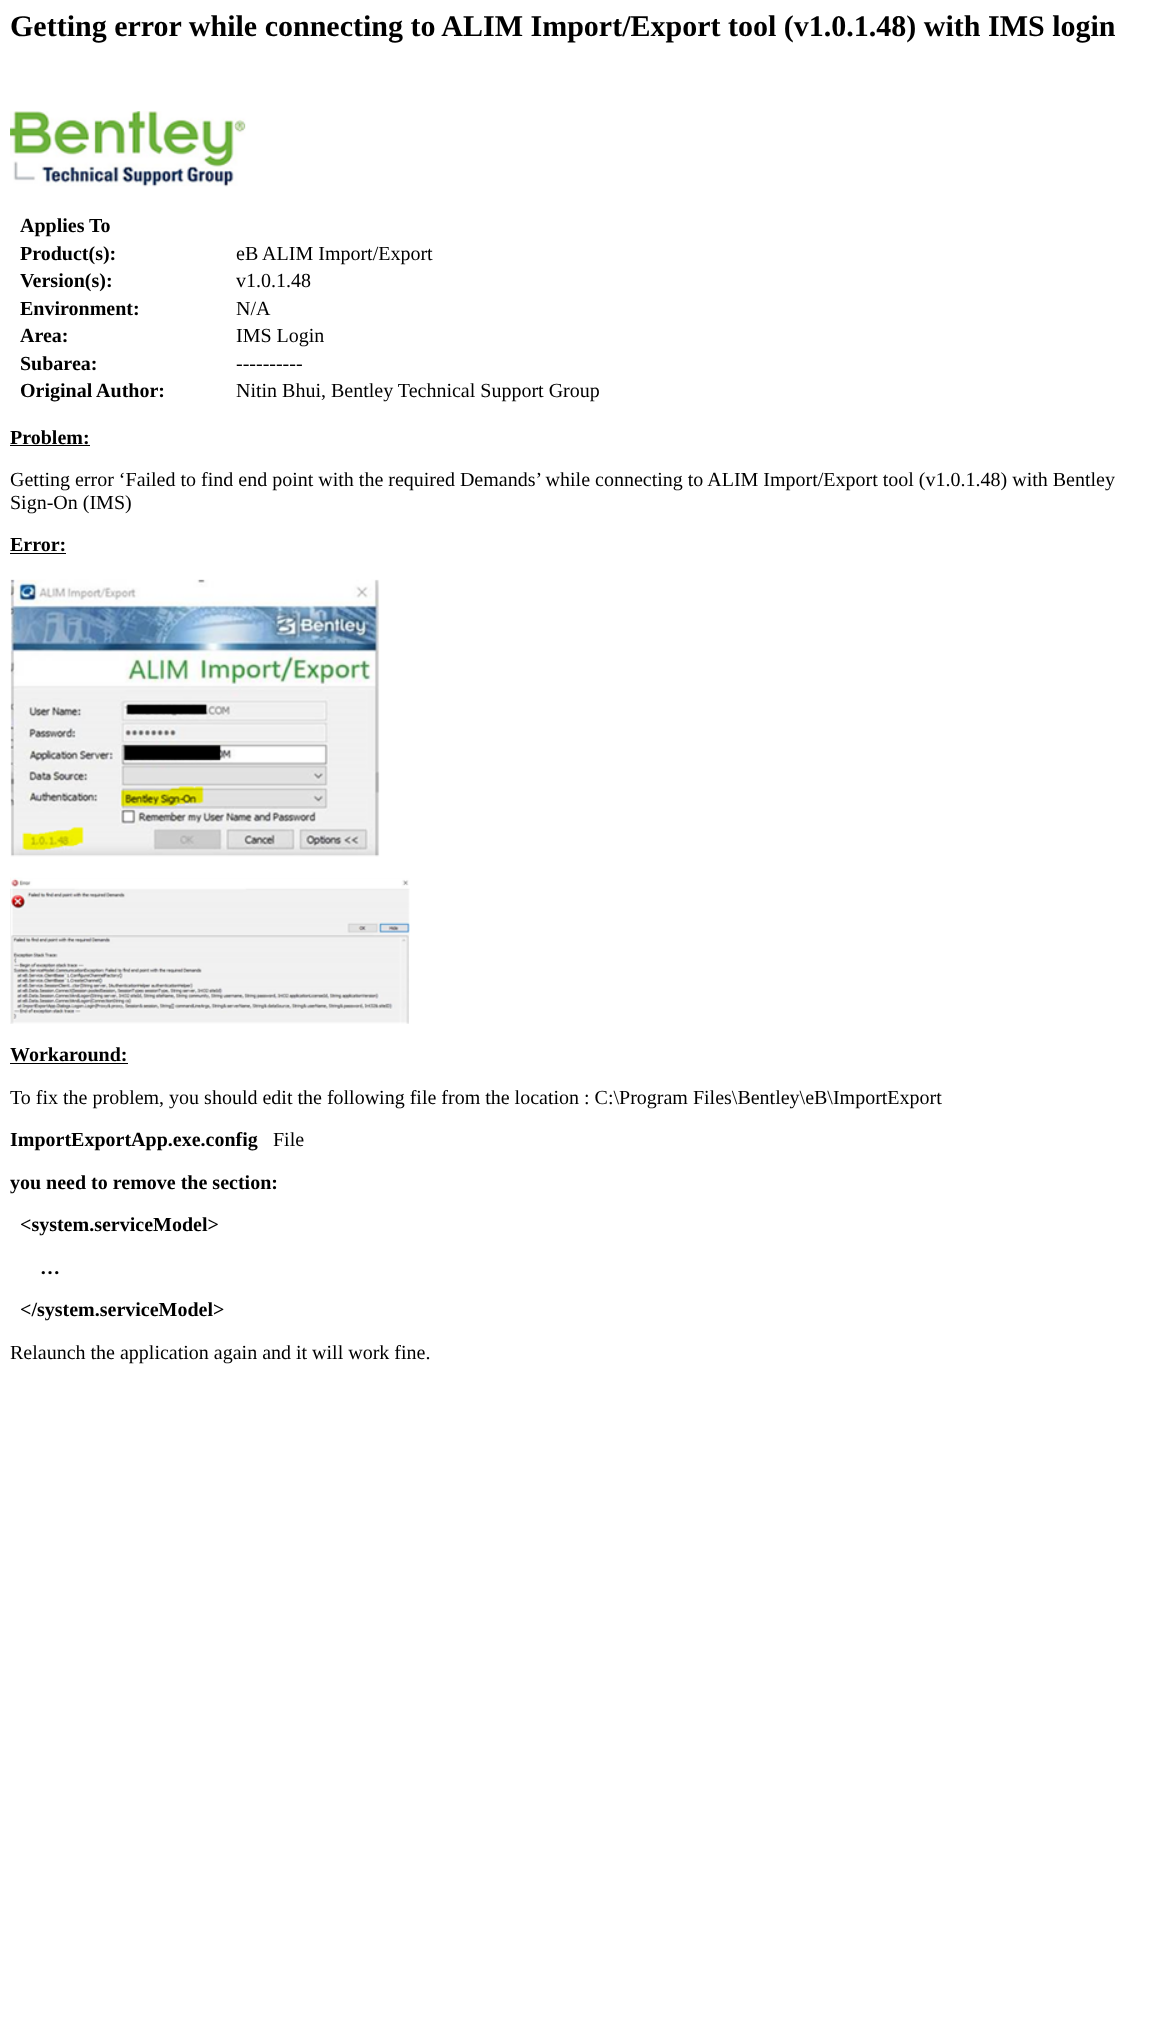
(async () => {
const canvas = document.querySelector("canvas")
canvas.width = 1163
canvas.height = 2042
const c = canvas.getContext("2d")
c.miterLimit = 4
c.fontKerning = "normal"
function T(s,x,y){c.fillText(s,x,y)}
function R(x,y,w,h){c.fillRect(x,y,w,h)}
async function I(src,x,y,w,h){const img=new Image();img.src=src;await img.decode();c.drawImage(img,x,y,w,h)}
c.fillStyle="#fff"
R(0,0,1163,2042)
c.font="bold 30px Liberation Serif"
c.fillStyle="#000"
T("Getting error while connecting to ALIM Import/Export tool (v1.0.1.48) with IMS login",10,36)
await I("1.png",10,111,236,76)
c.font="bold 20px Liberation Serif"
T("Applies To",20,232)
T("Product(s):",20,260)
c.font="20px Liberation Serif"
T("eB ALIM Import/Export",236,260)
c.font="bold 20px Liberation Serif"
T("Version(s):",20,287)
c.font="20px Liberation Serif"
T("v1.0.1.48",236,287)
c.font="bold 20px Liberation Serif"
T("Environment:",20,315)
c.font="20px Liberation Serif"
T("N/A",236,315)
c.font="bold 20px Liberation Serif"
T("Area:",20,342)
c.font="20px Liberation Serif"
T("IMS Login",236,342)
c.font="bold 20px Liberation Serif"
T("Subarea:",20,370)
c.font="20px Liberation Serif"
T("----------",236,370)
c.font="bold 20px Liberation Serif"
T("Original Author:",20,397)
c.font="20px Liberation Serif"
T("Nitin Bhui, Bentley Technical Support Group",236,397)
c.font="bold 20px Liberation Serif"
T("Problem:",10,444)
R(10,445,80,1)
c.font="20px Liberation Serif"
T("Getting error ‘Failed to find end point with the required Demands’ while connecting to ALIM Import/Export tool (v1.0.1.48) with Bentley",10,486)
T("Sign-On (IMS)",10,509)
c.font="bold 20px Liberation Serif"
T("Error:",10,551)
R(10,553,56,1)
await I("2.png",10,579,370,278)
await I("3.png",10,877,400,147)
T("Workaround:",10,1061)
R(10,1063,118,1)
c.font="20px Liberation Serif"
T("To fix the problem, you should edit the following file from the location : C:\\Program Files\\Bentley\\eB\\ImportExport",10,1104)
c.font="bold 20px Liberation Serif"
T("ImportExportApp.exe.config",10,1146)
c.font="20px Liberation Serif"
T("File",273,1146)
c.font="bold 20px Liberation Serif"
T("you need to remove the section:",10,1189)
T("<system.serviceModel>",20,1231)
T("…",40,1274)
T("<\/system.serviceModel>",20,1316)
c.font="20px Liberation Serif"
T("Relaunch the application again and it will work fine.",10,1359)
})()
